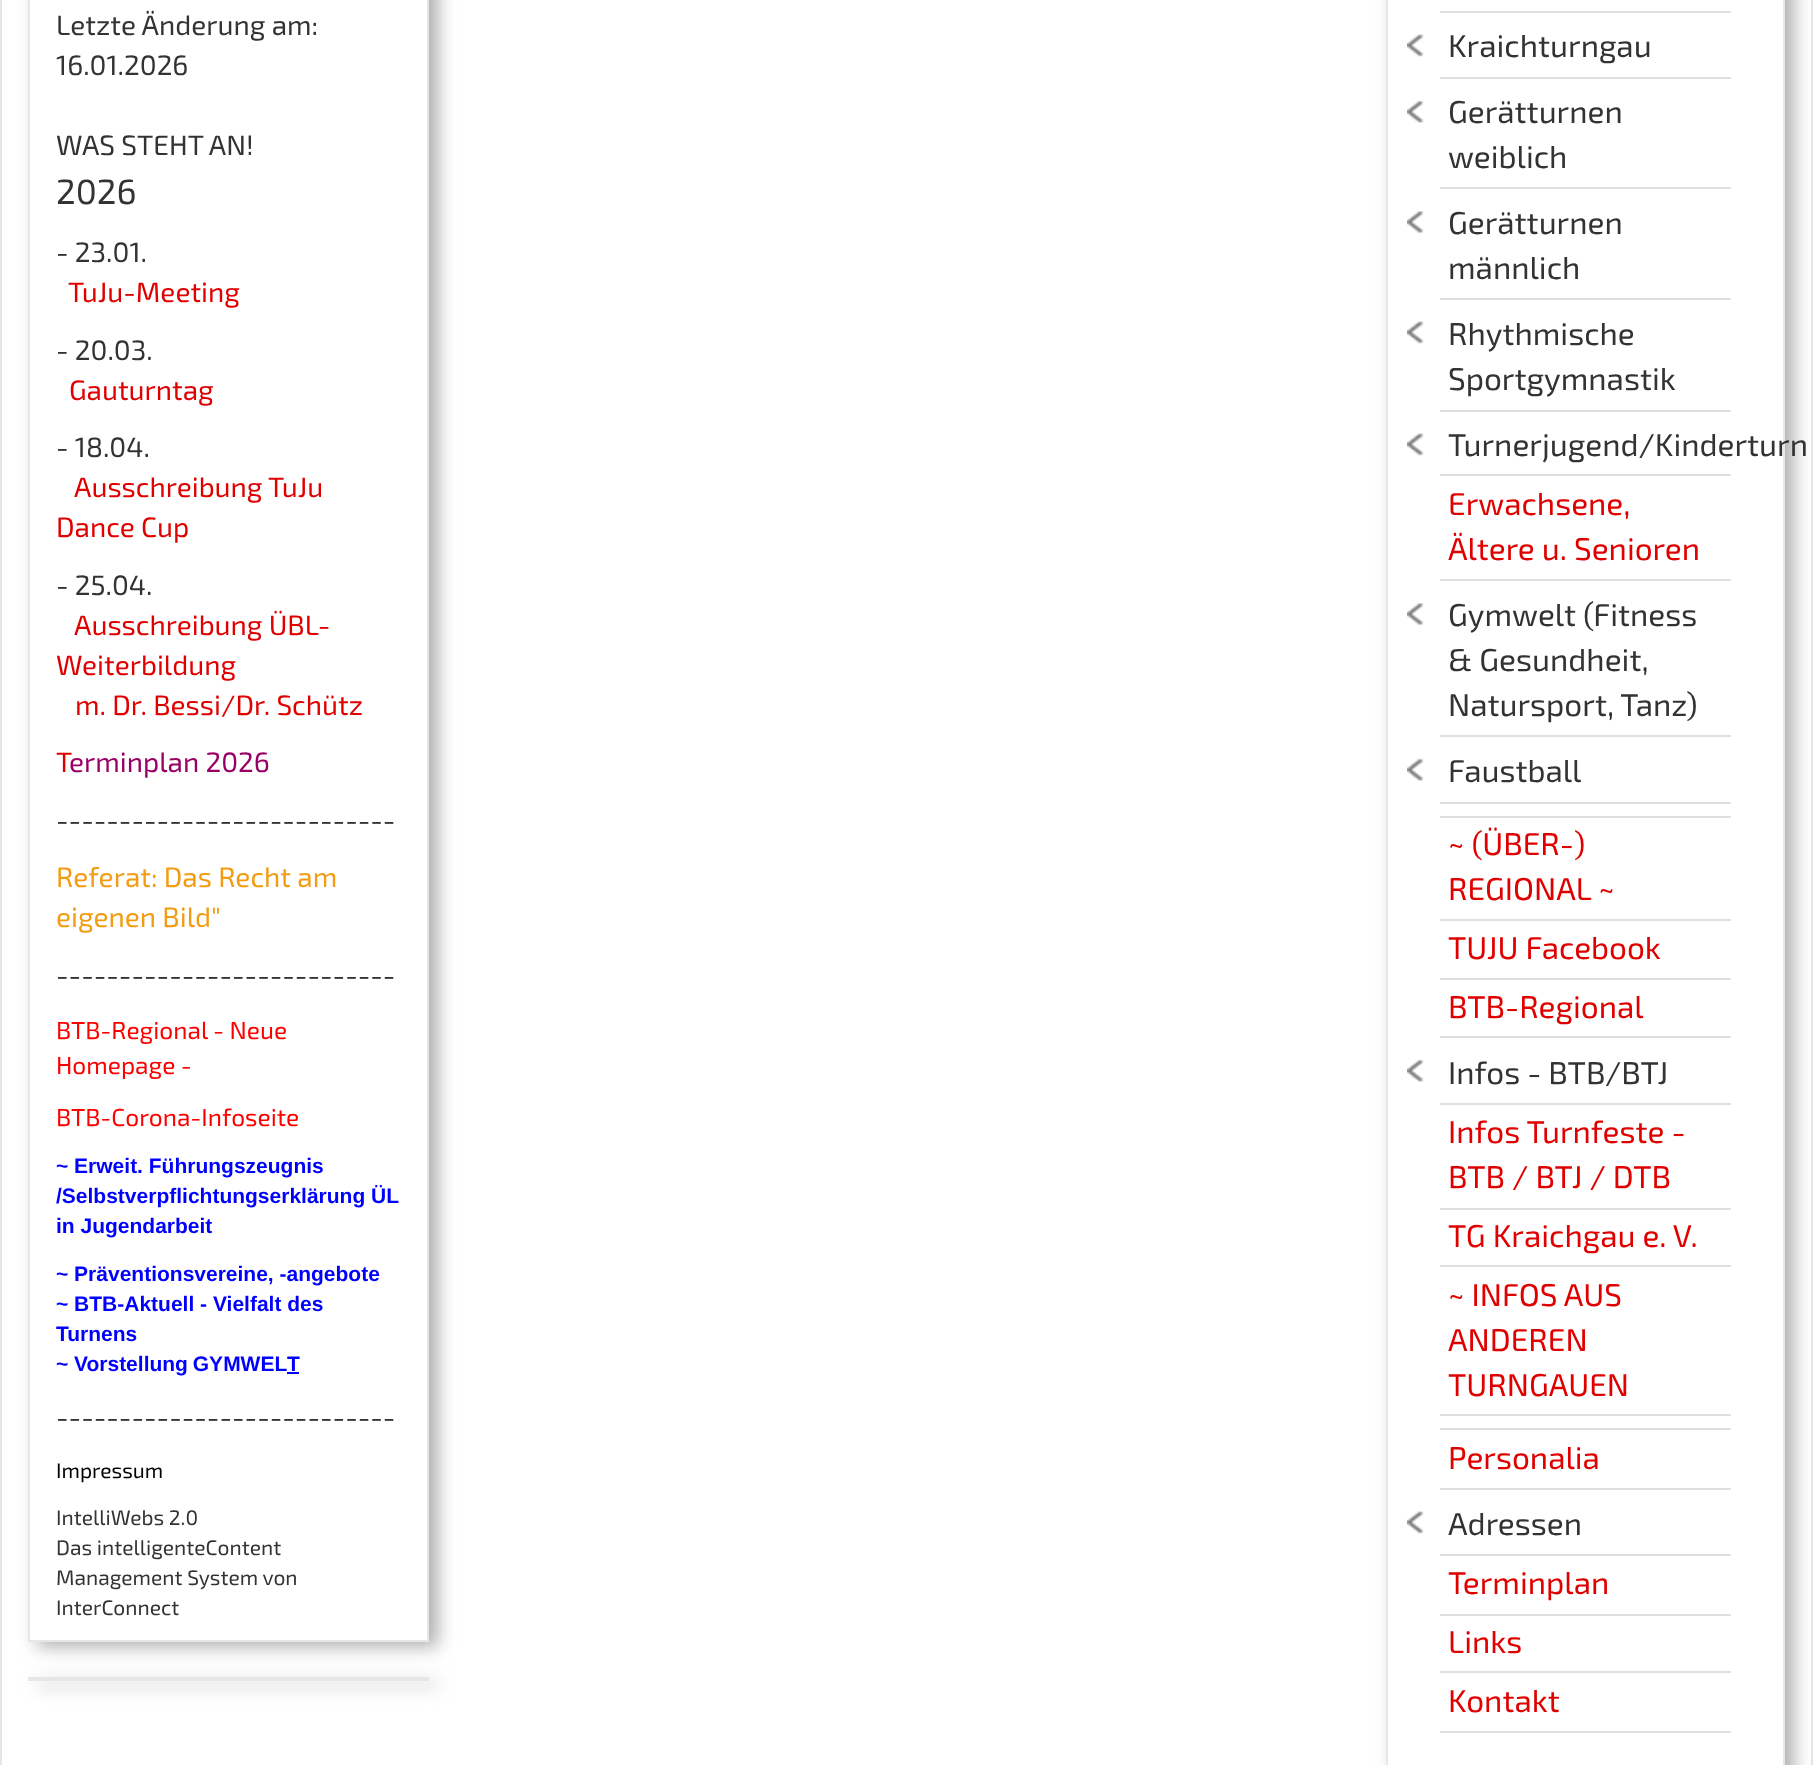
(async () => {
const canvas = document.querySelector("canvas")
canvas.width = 1813
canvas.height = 1765
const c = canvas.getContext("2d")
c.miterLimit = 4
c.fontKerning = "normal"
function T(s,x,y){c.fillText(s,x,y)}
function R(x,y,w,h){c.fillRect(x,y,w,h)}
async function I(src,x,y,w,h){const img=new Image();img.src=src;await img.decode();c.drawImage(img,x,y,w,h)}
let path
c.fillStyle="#fff"
R(0,0,1813,1765)
c.strokeStyle="#e6e6e6"
c.lineWidth=2
c.strokeRect(1,-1,1811,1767)
c.save()
path = new Path2D("M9 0h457v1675h-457zm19-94h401v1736h-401z")
c.clip(path,"evenodd")
c.fillStyle="#afafaf"
c.filter="blur(9px)"
c.beginPath()
c.rect(37,-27,401,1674)
c.fill()
c.filter="none"
c.restore()
c.strokeRect(29,-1,399,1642)
c.font="28px 'Exo 2'"
c.fillStyle="#333"
T("Letzte Änderung am:",56,35)
T("16.01.2026",56,75)
T("WAS STEHT AN!",56,155)
c.font="35px 'Exo 2'"
T("2026",56,204)
c.font="28px 'Exo 2'"
T("- 23.01.",56,262)
c.fillStyle="#e00000"
T("TuJu-Meeting",68,302)
c.fillStyle="#333"
T("- 20.03.",56,360)
c.fillStyle="#e00000"
T("Gauturntag",69,400)
c.fillStyle="#333"
T("- 18.04.",56,457)
c.fillStyle="#e00000"
T("Ausschreibung TuJu",74,497)
T("Dance Cup",56,537)
c.fillStyle="#333"
T("- 25.04.",56,595)
c.fillStyle="#e00000"
T("Ausschreibung ÜBL-",74,635)
T("Weiterbildung",56,675)
T("m. Dr. Bessi/Dr. Schütz",75,715)
T("T",56,772)
c.fillStyle="#906"
T("erminplan 2026",69,772)
c.fillStyle="#333"
T("---------------------------",56,830)
c.fillStyle="#f39c12"
T("Referat: Das Recht am",56,887)
T("eigenen Bild\"",56,927)
c.fillStyle="#333"
T("---------------------------",56,985)
c.font="24.5px 'Exo 2'"
c.fillStyle="#f00"
T("BTB-Regional - Neue",56,1039)
T("Homepage -",56,1074)
T("BTB-Corona-Infoseite",56,1126)
c.font="bold 21px Liberation Sans"
c.fillStyle="#00f"
T("~ Erweit. Führungszeugnis",56,1173)
T("/Selbstverpflichtungserklärung ÜL",56,1203)
T("in Jugendarbeit",56,1233)
T("~ Präventionsvereine, -angebote",56,1281)
T("~ BTB-Aktuell - Vielfalt des",56,1311)
T("Turnens",56,1341)
T("~",56,1371)
c.wordSpacing="-1px"
T("Vorstellung GYMWEL",74,1371)
R(287,1372,12,2)
c.wordSpacing="0px"
T("T",287,1371)
c.font="28px 'Exo 2'"
c.fillStyle="#333"
T("---------------------------",56,1427)
c.font="21px 'Exo 2'"
c.fillStyle="#000"
T("Impressum",56,1478)
c.fillStyle="#333"
T("IntelliWebs 2.0",56,1525)
T("Das intelligenteContent",56,1555)
T("Management System von",56,1585)
T("InterConnect",56,1615)
c.fillStyle="#afafaf"
c.filter="blur(9px)"
c.beginPath()
c.rect(37,1682,401,4)
c.fill()
c.filter="none"
c.fillStyle="#e6e6e6"
R(28,1677,401,4)
c.save()
path = new Path2D("M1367 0h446v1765h-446zm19-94h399v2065h-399z")
c.clip(path,"evenodd")
c.fillStyle="#afafaf"
c.filter="blur(9px)"
c.beginPath()
c.rect(1395,-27,399,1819)
c.fill()
c.filter="none"
c.restore()
c.strokeRect(1387,-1,397,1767)
c.fillStyle="#e0e0e0"
R(1440,11,291,2)
R(1440,77,291,2)
await I("1.png",1407,34,17,23)
c.font="31.5px 'Exo 2'"
c.fillStyle="#333"
T("Kraichturngau",1448,57)
c.fillStyle="#e0e0e0"
R(1440,187,291,2)
await I("2.png",1407,100,17,23)
c.fillStyle="#333"
T("Gerätturnen",1448,123)
T("weiblich",1448,168)
c.fillStyle="#e0e0e0"
R(1440,298,291,2)
await I("3.png",1407,211,17,22)
c.fillStyle="#333"
T("Gerätturnen",1448,234)
T("männlich",1448,279)
c.fillStyle="#e0e0e0"
R(1440,410,291,2)
await I("1.png",1407,321,17,23)
c.fillStyle="#333"
T("Rhythmische",1448,345)
T("Sportgymnastik",1448,390)
c.fillStyle="#e0e0e0"
R(1440,474,291,2)
await I("1.png",1407,433,17,23)
c.fillStyle="#333"
T("Turnerjugend/Kinderturn",1448,456)
c.fillStyle="#e0e0e0"
R(1440,579,291,2)
c.fillStyle="#e00000"
T("Erwachsene,",1448,515)
T("Ältere u. Senioren",1448,560)
c.fillStyle="#e0e0e0"
R(1440,735,291,2)
await I("3.png",1407,603,17,22)
c.fillStyle="#333"
T("Gymwelt (Fitness",1448,626)
T("& Gesundheit,",1448,671)
T("Natursport, Tanz)",1448,716)
c.fillStyle="#e0e0e0"
R(1440,802,291,2)
await I("2.png",1407,758,17,23)
c.fillStyle="#333"
T("Faustball",1448,782)
c.fillStyle="#e0e0e0"
R(1440,816,291,2)
R(1440,919,291,2)
c.fillStyle="#e00000"
T("~ (ÜBER-)",1448,855)
T("REGIONAL ~",1448,900)
c.fillStyle="#e0e0e0"
R(1440,978,291,2)
c.fillStyle="#e00000"
T("TUJU Facebook",1448,959)
c.fillStyle="#e0e0e0"
R(1440,1036,291,2)
c.fillStyle="#e00000"
T("BTB-Regional",1448,1018)
c.fillStyle="#e0e0e0"
R(1440,1103,291,2)
await I("2.png",1407,1059,17,23)
c.fillStyle="#333"
T("Infos - BTB/BTJ",1448,1084)
c.fillStyle="#e0e0e0"
R(1440,1208,291,2)
c.fillStyle="#e00000"
T("Infos Turnfeste -",1448,1143)
T("BTB / BTJ / DTB",1448,1188)
c.fillStyle="#e0e0e0"
R(1440,1265,291,2)
c.fillStyle="#e00000"
T("TG Kraichgau e. V.",1448,1247)
c.fillStyle="#e0e0e0"
R(1440,1414,291,2)
c.fillStyle="#e00000"
T("~ INFOS AUS",1448,1306)
T("ANDEREN",1448,1351)
T("TURNGAUEN",1448,1396)
c.fillStyle="#e0e0e0"
R(1440,1428,291,2)
R(1440,1488,291,2)
c.fillStyle="#e00000"
T("Personalia",1448,1469)
c.fillStyle="#e0e0e0"
R(1440,1554,291,2)
await I("1.png",1407,1511,17,23)
c.fillStyle="#333"
T("Adressen",1448,1535)
c.fillStyle="#e0e0e0"
R(1440,1614,291,2)
c.fillStyle="#e00000"
T("Terminplan",1448,1594)
c.fillStyle="#e0e0e0"
R(1440,1671,291,2)
c.fillStyle="#e00000"
T("Links",1448,1653)
c.fillStyle="#e0e0e0"
R(1440,1731,291,2)
c.fillStyle="#e00000"
T("Kontakt",1448,1712)
})()
